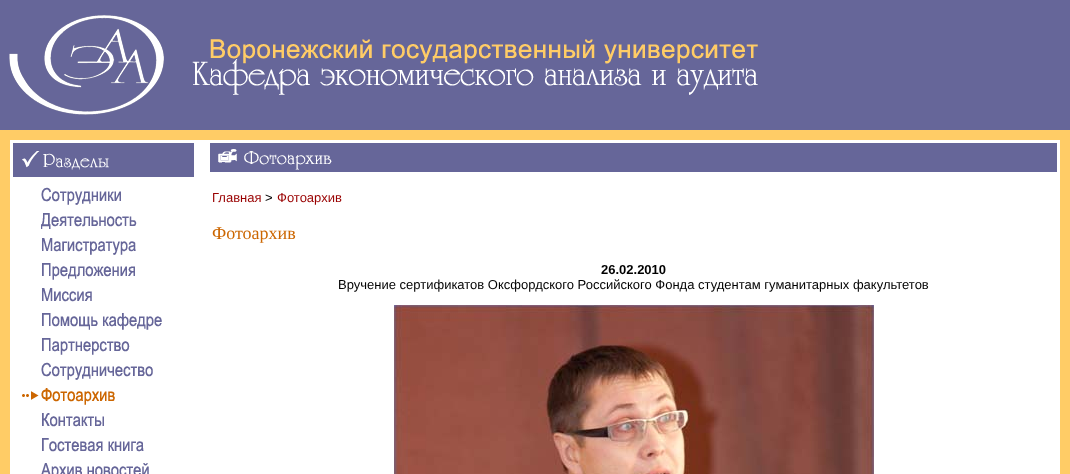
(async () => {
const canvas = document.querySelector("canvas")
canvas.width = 1070
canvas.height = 474
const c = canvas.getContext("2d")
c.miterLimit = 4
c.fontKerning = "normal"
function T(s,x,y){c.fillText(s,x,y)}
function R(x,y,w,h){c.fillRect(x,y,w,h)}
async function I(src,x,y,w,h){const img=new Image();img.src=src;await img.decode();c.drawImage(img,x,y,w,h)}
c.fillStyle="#669"
R(0,0,1070,474)
await I("1.png",9,15,155,100)
await I("2.png",192,39,566,56)
c.fillStyle="#fc6"
R(0,130,1070,344)
c.fillStyle="#fff"
R(10,140,1050,334)
c.fillStyle="#669"
R(13,143,181,34)
await I("3.png",22,151,87,19)
await I("4.png",41,187,80,18)
await I("5.png",41,213,96,16)
await I("6.png",42,238,94,17)
await I("7.png",42,263,93,17)
await I("8.png",42,288,50,14)
await I("9.png",42,313,120,17)
await I("10.png",42,338,88,17)
await I("11.png",41,362,112,18)
await I("12.png",22,388,93,17)
await I("13.png",42,413,62,14)
await I("14.png",42,438,102,14)
await I("15.png",41,463,108,11)
R(210,143,847,29)
await I("16.png",218,149,114,21)
c.font="13px Liberation Sans"
c.fillStyle="#900"
T("Главная",212,202)
c.fillStyle="#000"
T(">",265,202)
c.fillStyle="#900"
T("Фотоархив",277,202)
c.font="18px Liberation Serif"
c.fillStyle="#c60"
T("Фотоархив",212,239)
c.font="bold 13px Liberation Sans"
c.fillStyle="#000"
T("26.02.2010",601,274)
c.font="13px Liberation Sans"
T("Вручение сертификатов Оксфордского Российского Фонда студентам гуманитарных факультетов",338,289)
await I("17.png",394,305,480,169)
})()
